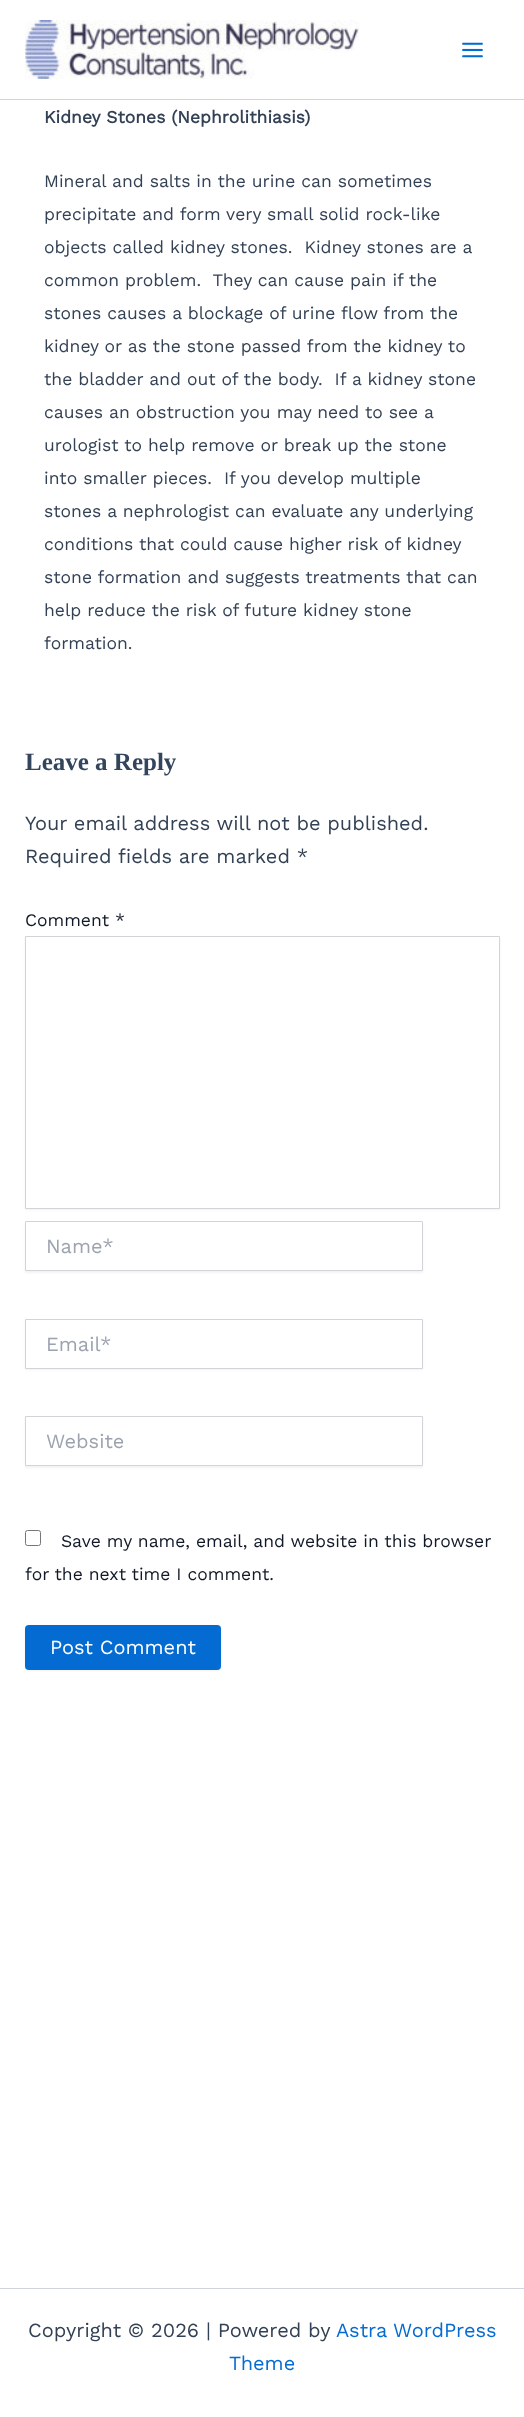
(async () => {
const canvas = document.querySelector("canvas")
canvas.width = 524
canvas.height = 2417
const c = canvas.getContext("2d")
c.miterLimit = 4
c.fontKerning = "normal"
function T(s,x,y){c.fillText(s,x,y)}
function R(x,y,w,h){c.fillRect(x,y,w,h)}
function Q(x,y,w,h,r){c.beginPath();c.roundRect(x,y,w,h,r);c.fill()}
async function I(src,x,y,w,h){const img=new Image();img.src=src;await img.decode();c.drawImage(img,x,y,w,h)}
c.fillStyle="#fff"
R(0,0,524,2417)
c.fillStyle="#d1d5db"
R(0,99,524,1)
await I("1.png",25,20,334,59)
await I("2.png",462,42,21,16)
c.font="bold 17.5px Work Sans"
c.fillStyle="#334155"
T("Kidney Stones (Nephrolithiasis)",44,123)
c.font="17.5px Work Sans"
T("Mineral and salts in the urine can sometimes",44,187)
T("precipitate and form very small solid rock-like",44,220)
T("objects called kidney stones.  Kidney stones are a",44,253)
T("common problem.  They can cause pain if the",44,286)
T("stones causes a blockage of urine flow from the",44,319)
T("kidney or as the stone passed from the kidney to",44,352)
T("the bladder and out of the body.  If a kidney stone",44,385)
T("causes an obstruction you may need to see a",44,418)
T("urologist to help remove or break up the stone",44,451)
T("into smaller pieces.  If you develop multiple",44,484)
T("stones a nephrologist can evaluate any underlying",44,517)
T("conditions that could cause higher risk of kidney",44,550)
T("stone formation and suggests treatments that can",44,583)
T("help reduce the risk of future kidney stone",44,616)
T("formation.",44,649)
c.font="bold 25px Liberation Serif"
c.fillStyle="#33455c"
T("Leave a Reply",25,770)
c.font="20px Work Sans"
c.fillStyle="#334155"
T("Your email address will not be published.",25,830)
T("Required fields are marked *",25,863)
c.font="17.5px Work Sans"
c.fillStyle="#111827"
T("Comment *",25,926)
c.fillStyle="#0000000d"
c.filter="blur(1px)"
c.beginPath()
c.rect(25,938,475,272)
c.fill()
c.filter="none"
c.fillStyle="#fff"
c.beginPath()
c.rect(25.5,936.5,474,272)
c.fill()
c.strokeStyle="#d1d5db"
c.stroke()
c.fillStyle="#0000000d"
c.filter="blur(1px)"
c.beginPath()
c.rect(25,1223,398,50)
c.fill()
c.filter="none"
c.fillStyle="#fff"
c.beginPath()
c.rect(25.5,1221.5,397,49)
c.fill()
c.stroke()
c.font="20px Work Sans"
c.fillStyle="#9ca3af"
T("Name*",46,1253)
c.fillStyle="#0000000d"
c.filter="blur(1px)"
c.beginPath()
c.rect(25,1320,398,50)
c.fill()
c.filter="none"
c.fillStyle="#fff"
c.beginPath()
c.rect(25.5,1319.5,397,49)
c.fill()
c.stroke()
c.fillStyle="#9ca3af"
T("Email*",46,1351)
c.fillStyle="#0000000d"
c.filter="blur(1px)"
c.beginPath()
c.rect(25,1418,398,50)
c.fill()
c.filter="none"
c.fillStyle="#fff"
c.beginPath()
c.rect(25.5,1416.5,397,49)
c.fill()
c.stroke()
c.fillStyle="#9ca3af"
T("Website",46,1448)
c.beginPath()
c.roundRect(25.5,1530.5,15,15,2)
c.strokeStyle="#767676"
c.stroke()
c.font="17.5px Work Sans"
c.fillStyle="#111827"
T("Save my name, email, and website in this browser",61,1547)
T("for the next time I comment.",25,1580)
c.fillStyle="#0000000d"
c.filter="blur(1px)"
c.beginPath()
c.roundRect(25,1626,196,45,4)
c.fill()
c.filter="none"
c.fillStyle="#046bd2"
Q(25,1625,196,45,4)
c.font="20px Work Sans"
c.fillStyle="#fff"
T("Post Comment",50,1654)
c.fillStyle="#d1d5db"
R(0,2288,524,1)
c.fillStyle="#334155"
T("Copyright © 2026",28,2337)
T("| Powered by",206,2337)
c.fillStyle="#046bd2"
T("Astra WordPress",336,2337)
T("Theme",229,2370)
})()
